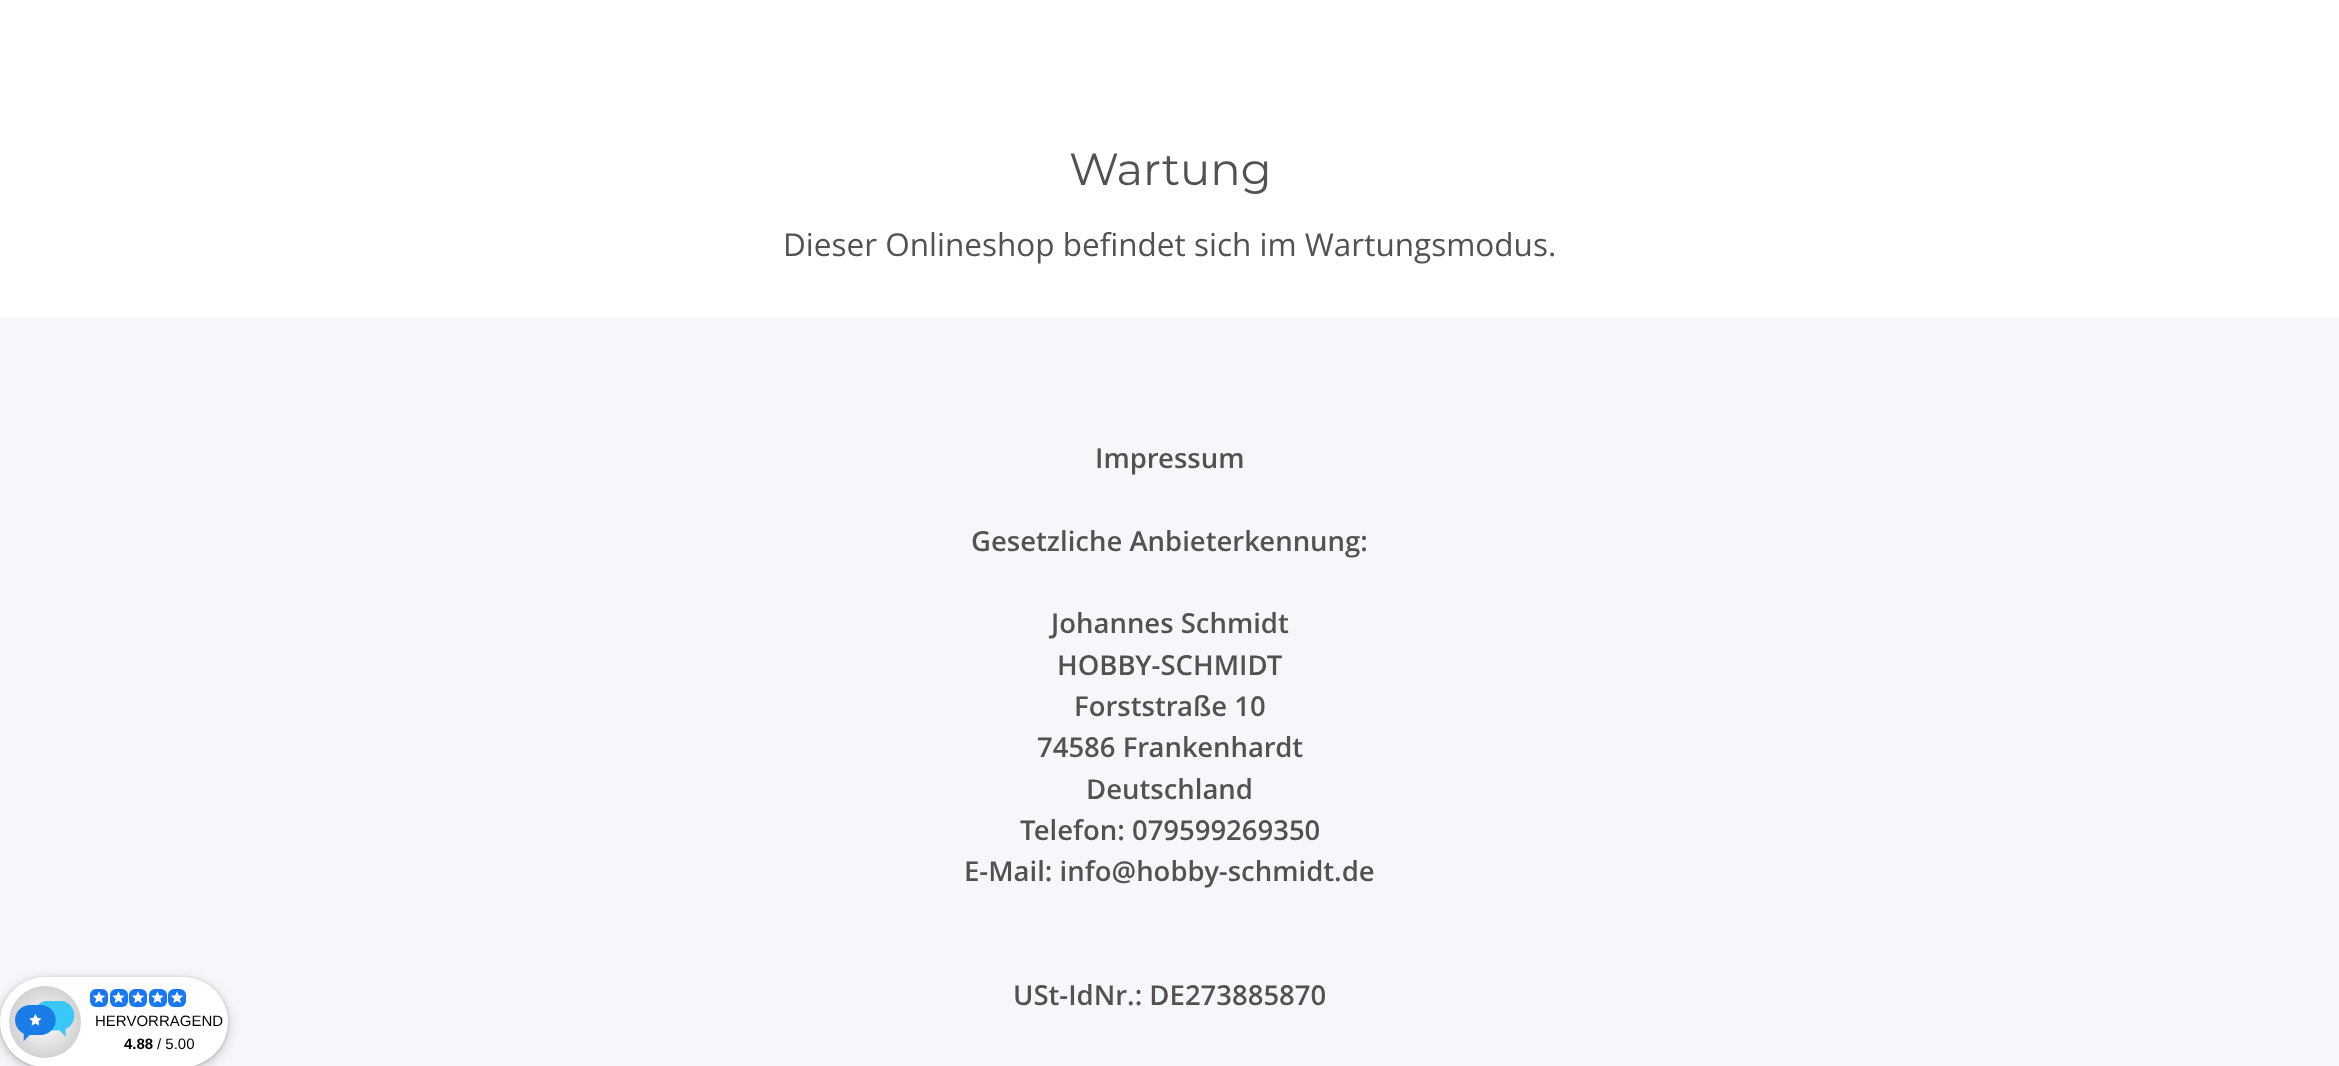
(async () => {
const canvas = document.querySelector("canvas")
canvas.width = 2339
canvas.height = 1066
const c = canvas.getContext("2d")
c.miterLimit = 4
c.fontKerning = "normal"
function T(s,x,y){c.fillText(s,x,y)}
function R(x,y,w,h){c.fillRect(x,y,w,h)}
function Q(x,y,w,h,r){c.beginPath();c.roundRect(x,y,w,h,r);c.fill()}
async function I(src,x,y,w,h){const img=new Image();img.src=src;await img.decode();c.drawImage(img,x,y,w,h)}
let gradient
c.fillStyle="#fff"
R(0,0,2339,1066)
c.font="45px Montserrat"
c.fillStyle="#525252"
T("Wartung",1069,185)
c.font="31.5px Open Sans"
T("Dieser Onlineshop befindet sich im Wartungsmodus.",783,256)
c.fillStyle="#f5f7fa"
R(0,317,2339,749)
c.font="600 27.5px Open Sans"
c.fillStyle="#525252"
T("Impressum",1095,468)
T("Gesetzliche Anbieterkennung:",971,551)
T("Johannes Schmidt",1051,633)
T("HOBBY-SCHMIDT",1057,675)
T("Forststraße 10",1074,716)
T("74586 Frankenhardt",1037,757)
T("Deutschland",1086,799)
T("Telefon: 079599269350",1020,840)
T("E-Mail: info@hobby-schmidt.de",964,881)
T("USt-IdNr.: DE273885870",1013,1005)
c.fillStyle="#3c404326"
c.filter="blur(4.5px)"
c.beginPath()
c.roundRect(-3,977,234,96,48)
c.fill()
c.filter="none"
c.fillStyle="#3c40434d"
c.filter="blur(1.5px)"
c.beginPath()
c.roundRect(0,978,228,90,45)
c.fill()
c.filter="none"
c.fillStyle="#fff"
Q(0,977,228,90,45)
gradient = c.createRadialGradient(45,1022,0,45,1022,51)
gradient.addColorStop(0,"#fff")
gradient.addColorStop(1,"#bfbfbf")
c.fillStyle = gradient
c.beginPath()
c.arc(45,1022,36,0,7)
c.fill()
await I("1.png",15,1001,60,40)
c.fillStyle="#1777f4"
Q(90,989,18,18,6)
await I("2.png",92,991,14,12)
Q(110,989,18,18,6)
await I("3.png",112,991,13,12)
Q(129,989,18,18,6)
await I("2.png",131,991,14,12)
Q(149,989,18,18,6)
await I("3.png",151,991,13,12)
Q(168,989,18,18,6)
await I("2.png",170,991,14,12)
c.font="15px Liberation Sans"
c.fillStyle="#000"
T("HERVORRAGEND",95,1026)
c.font="bold 15px Liberation Sans"
T("4.88",124,1049)
c.font="15px Liberation Sans"
T("/ 5.00",157,1049)
})()
